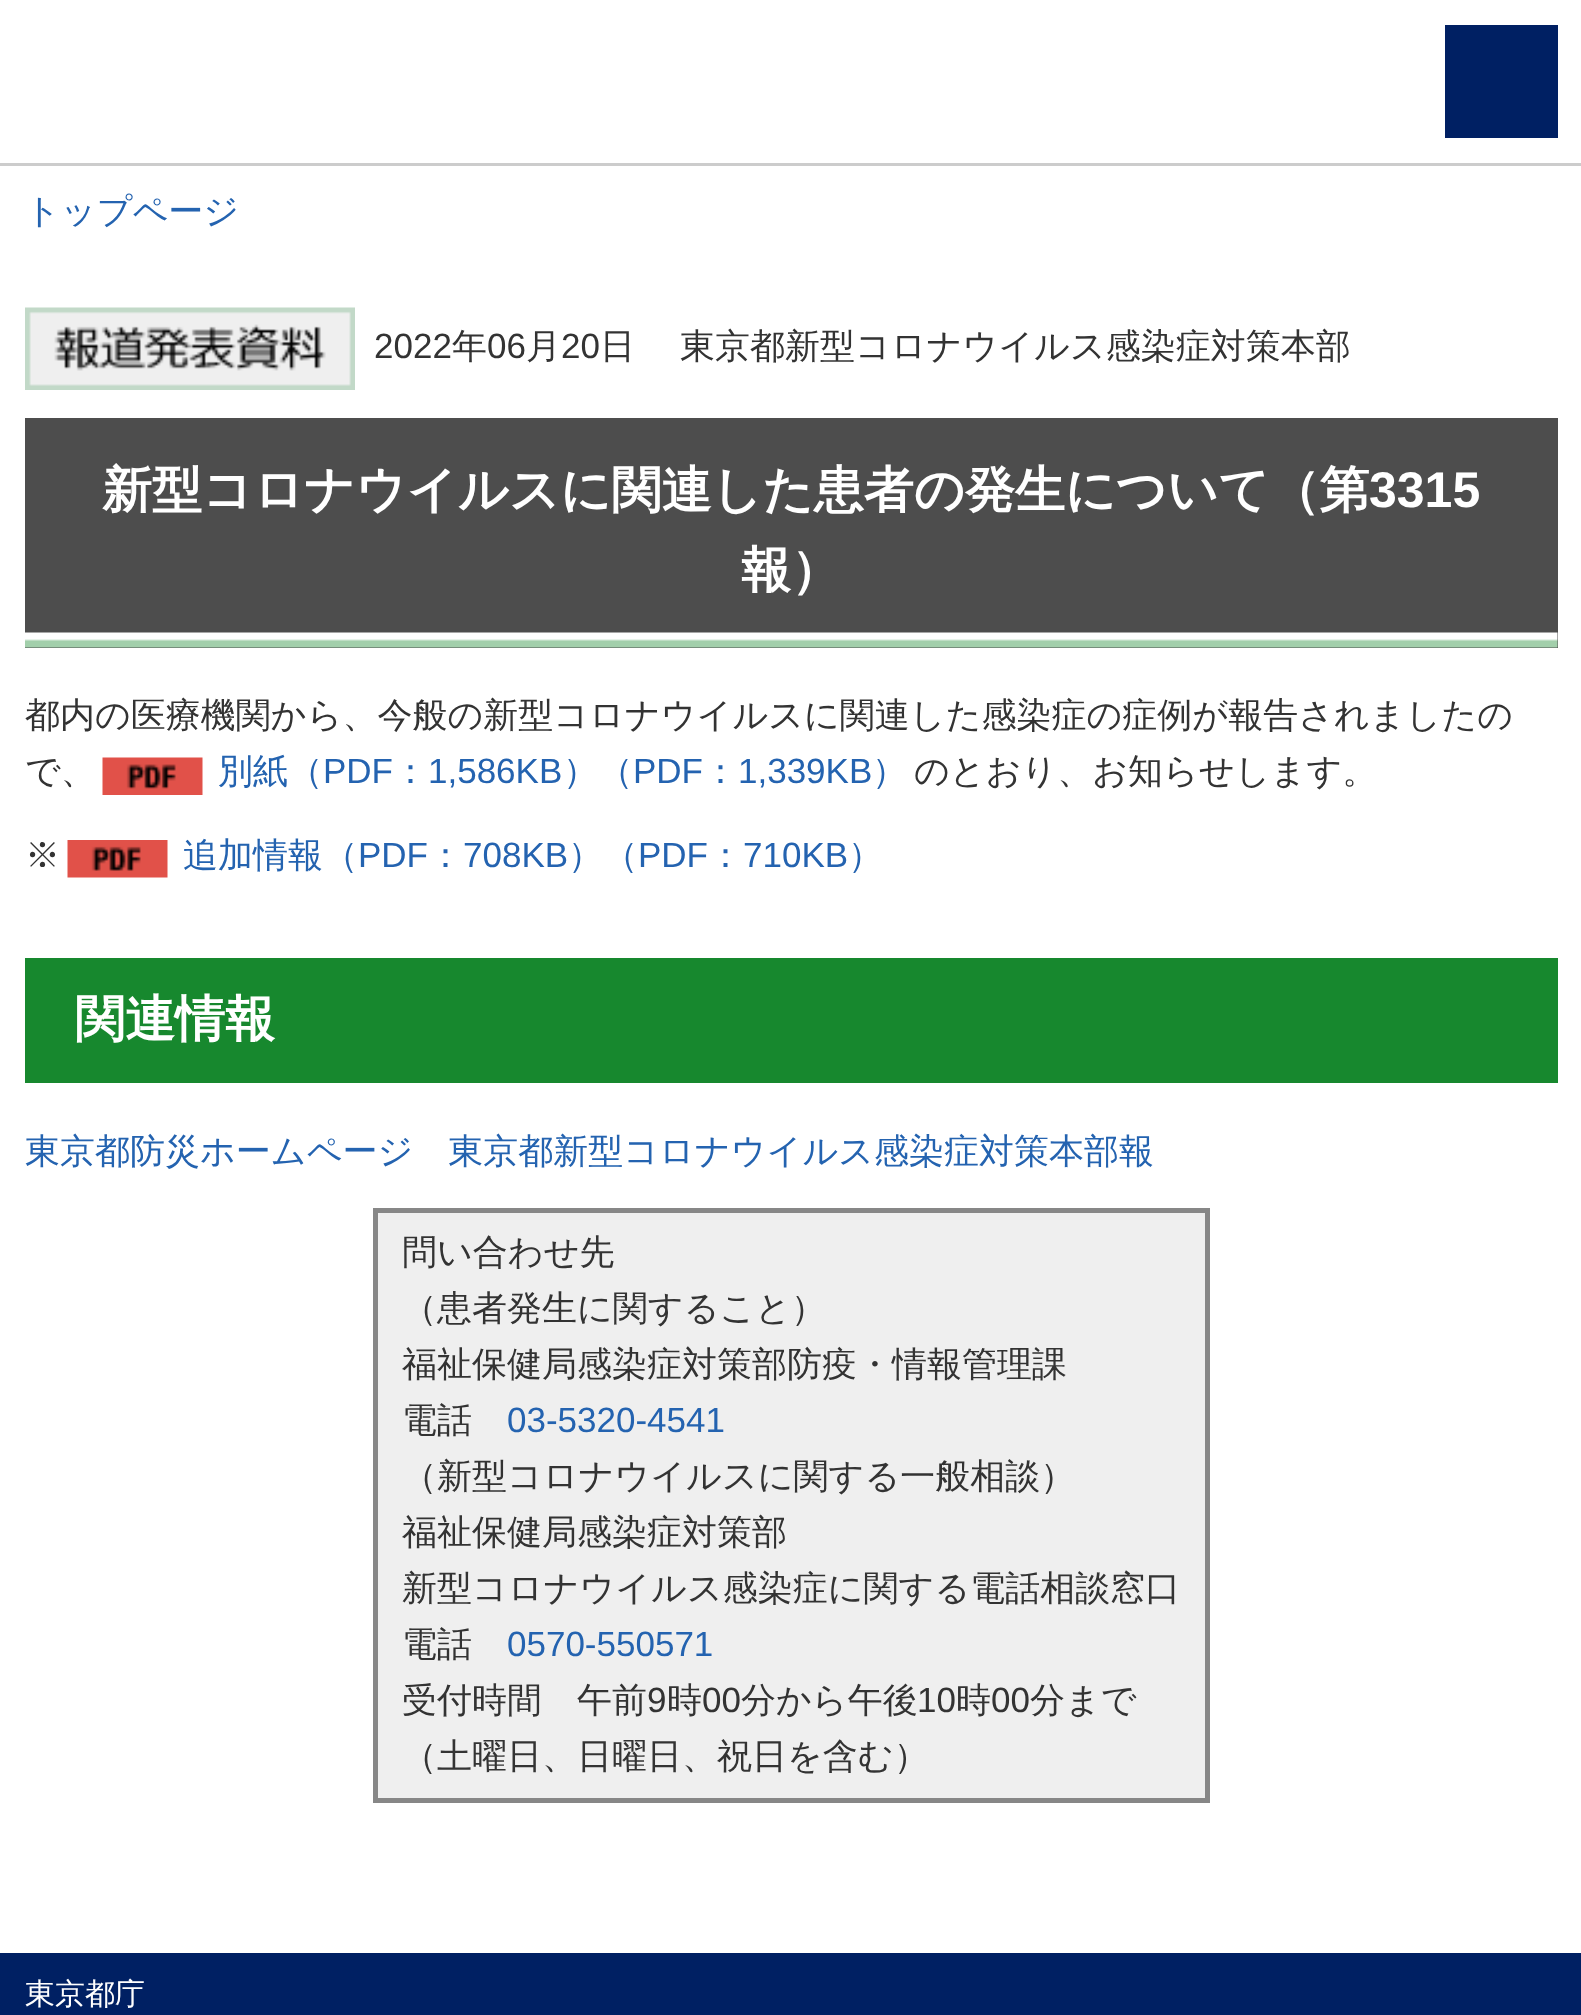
(async () => {
const canvas = document.querySelector("canvas")
canvas.width = 1581
canvas.height = 2015
const c = canvas.getContext("2d")
c.miterLimit = 4
c.fontKerning = "normal"
function T(s,x,y){c.fillText(s,x,y)}
function R(x,y,w,h){c.fillRect(x,y,w,h)}
async function I(src,x,y,w,h){const img=new Image();img.src=src;await img.decode();c.drawImage(img,x,y,w,h)}
c.fillStyle="#fff"
R(0,0,1581,2015)
c.fillStyle="#ccc"
R(0,163,1581,3)
c.fillStyle="#002063"
R(1445,25,113,113)
c.font="500 35px WenQuanYi Zen Hei"
c.fillStyle="#2463b0"
T("トップページ",25,223)
await I("1.png",25,307,330,83)
c.font="35px Liberation Sans"
c.fillStyle="#333"
T("2022",374,358)
c.font="500 35px WenQuanYi Zen Hei"
T("年",452,358)
c.font="35px Liberation Sans"
T("06",487,358)
c.font="500 35px WenQuanYi Zen Hei"
T("月",526,358)
c.font="35px Liberation Sans"
T("20",561,358)
c.font="500 35px WenQuanYi Zen Hei"
T("日",600,358)
T("東京都新型コロナウイルス感染症対策本部",680,358)
c.fillStyle="#4d4d4d"
R(25,418,1533,230)
await I("2.png",25,632,1533,16)
c.font="bold 50px WenQuanYi Zen Hei"
c.fillStyle="#fff"
T("新型コロナウイルスに関連した患者の発生について（第",102,507)
c.font="bold 50px Liberation Sans"
T("3315",1369,507)
c.font="bold 50px WenQuanYi Zen Hei"
T("報）",741,587)
c.font="500 35px WenQuanYi Zen Hei"
c.fillStyle="#333"
T("都内の医療機関から、今般の新型コロナウイルスに関連した感染症の症例が報告されましたの",25,727)
T("で、",25,783)
await I("3.png",102,757,101,38)
c.fillStyle="#2463b0"
T("別紙（",218,783)
c.font="35px Liberation Sans"
T("PDF",323,783)
c.font="500 35px WenQuanYi Zen Hei"
T("：",393,783)
c.font="35px Liberation Sans"
T("1,586KB",428,783)
c.font="500 35px WenQuanYi Zen Hei"
T("）（",563,783)
c.font="35px Liberation Sans"
T("PDF",633,783)
c.font="500 35px WenQuanYi Zen Hei"
T("：",703,783)
c.font="35px Liberation Sans"
T("1,339KB",738,783)
c.font="500 35px WenQuanYi Zen Hei"
T("）",872,783)
c.fillStyle="#333"
T("のとおり、お知らせします。",914,783)
T("※",25,867)
await I("4.png",67,840,101,38)
c.fillStyle="#2463b0"
T("追加情報（",183,867)
c.font="35px Liberation Sans"
T("PDF",358,867)
c.font="500 35px WenQuanYi Zen Hei"
T("：",428,867)
c.font="35px Liberation Sans"
T("708KB",463,867)
c.font="500 35px WenQuanYi Zen Hei"
T("）（",568,867)
c.font="35px Liberation Sans"
T("PDF",638,867)
c.font="500 35px WenQuanYi Zen Hei"
T("：",708,867)
c.font="35px Liberation Sans"
T("710KB",743,867)
c.font="500 35px WenQuanYi Zen Hei"
T("）",848,867)
c.fillStyle="#17882e"
R(25,958,1533,125)
c.font="bold 50px WenQuanYi Zen Hei"
c.fillStyle="#fff"
T("関連情報",75,1036)
c.font="500 35px WenQuanYi Zen Hei"
c.fillStyle="#2463b0"
T("東京都防災ホームページ　東京都新型コロナウイルス感染症対策本部報",25,1163)
c.fillStyle="#efefef"
R(378,1213,827,585)
c.fillStyle="#878787"
R(373,1208,837,5)
R(1205,1208,5,595)
R(373,1798,837,5)
R(373,1208,5,595)
c.fillStyle="#333"
T("問い合わせ先",402,1264)
T("（患者発生に関すること）",402,1320)
T("福祉保健局感染症対策部防疫・情報管理課",402,1376)
T("電話",402,1432)
c.font="35px Liberation Sans"
c.fillStyle="#2463b0"
T("03-5320-4541",507,1432)
c.font="500 35px WenQuanYi Zen Hei"
c.fillStyle="#333"
T("（新型コロナウイルスに関する一般相談）",402,1488)
T("福祉保健局感染症対策部",402,1544)
T("新型コロナウイルス感染症に関する電話相談窓口",402,1600)
T("電話",402,1656)
c.font="35px Liberation Sans"
c.fillStyle="#2463b0"
T("0570-550571",507,1656)
c.font="500 35px WenQuanYi Zen Hei"
c.fillStyle="#333"
T("受付時間　午前",402,1712)
c.font="35px Liberation Sans"
T("9",647,1712)
c.font="500 35px WenQuanYi Zen Hei"
T("時",667,1712)
c.font="35px Liberation Sans"
T("00",702,1712)
c.font="500 35px WenQuanYi Zen Hei"
T("分から午後",741,1712)
c.font="35px Liberation Sans"
T("10",917,1712)
c.font="500 35px WenQuanYi Zen Hei"
T("時",956,1712)
c.font="35px Liberation Sans"
T("00",991,1712)
c.font="500 35px WenQuanYi Zen Hei"
T("分まで",1030,1712)
T("（土曜日、日曜日、祝日を含む）",402,1768)
c.fillStyle="#002063"
R(0,1953,1581,62)
c.font="500 30px WenQuanYi Zen Hei"
c.fillStyle="#fff"
T("東京都庁",25,2004)
})()
